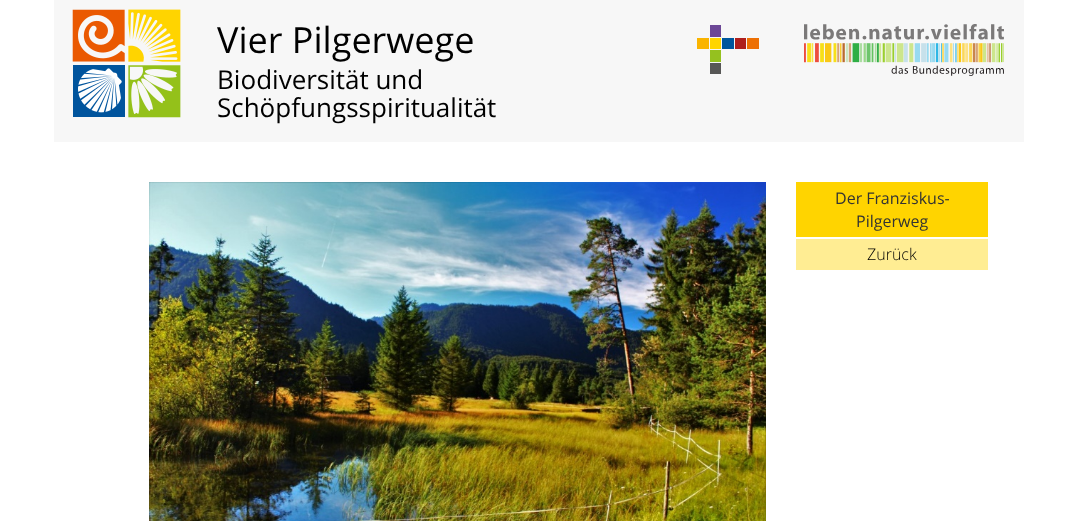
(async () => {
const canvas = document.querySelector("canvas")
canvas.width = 1077
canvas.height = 521
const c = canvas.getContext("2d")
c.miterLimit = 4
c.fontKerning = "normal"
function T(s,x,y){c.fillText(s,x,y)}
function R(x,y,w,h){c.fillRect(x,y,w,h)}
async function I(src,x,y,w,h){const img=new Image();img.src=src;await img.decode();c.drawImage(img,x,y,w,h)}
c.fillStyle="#fff"
R(0,0,1077,521)
c.fillStyle="#f7f7f7"
R(54,0,970,142)
await I("1.png",72,9,109,109)
c.font="36px Open Sans"
c.fillStyle="#000"
T("Vier Pilgerwege",217,53)
c.font="26px Open Sans"
T("Biodiversität und",217,89)
T("Schöpfungsspiritualität",217,117)
c.fillStyle="#6c4796"
R(710,25,11,12)
c.fillStyle="#fab400"
R(697,38,12,11)
c.fillStyle="#ffd500"
R(710,38,11,11)
c.fillStyle="#00569d"
R(722,38,12,11)
c.fillStyle="#af1f1d"
R(735,38,11,11)
c.fillStyle="#ed7004"
R(747,38,12,11)
c.fillStyle="#95c11f"
R(710,50,11,12)
c.fillStyle="#575756"
R(710,63,11,11)
await I("2.png",804,24,200,52)
await I("3.png",149,182,617,339)
c.fillStyle="#ffd400"
R(796,182,192,55)
c.font="16px Open Sans"
c.fillStyle="#333"
T("Der Franziskus-",835,204)
T("Pilgerweg",856,227)
c.fillStyle="#ffed93"
R(796,239,192,31)
c.font="300 16px Open Sans"
c.fillStyle="#000"
T("Zurück",867,260)
})()
